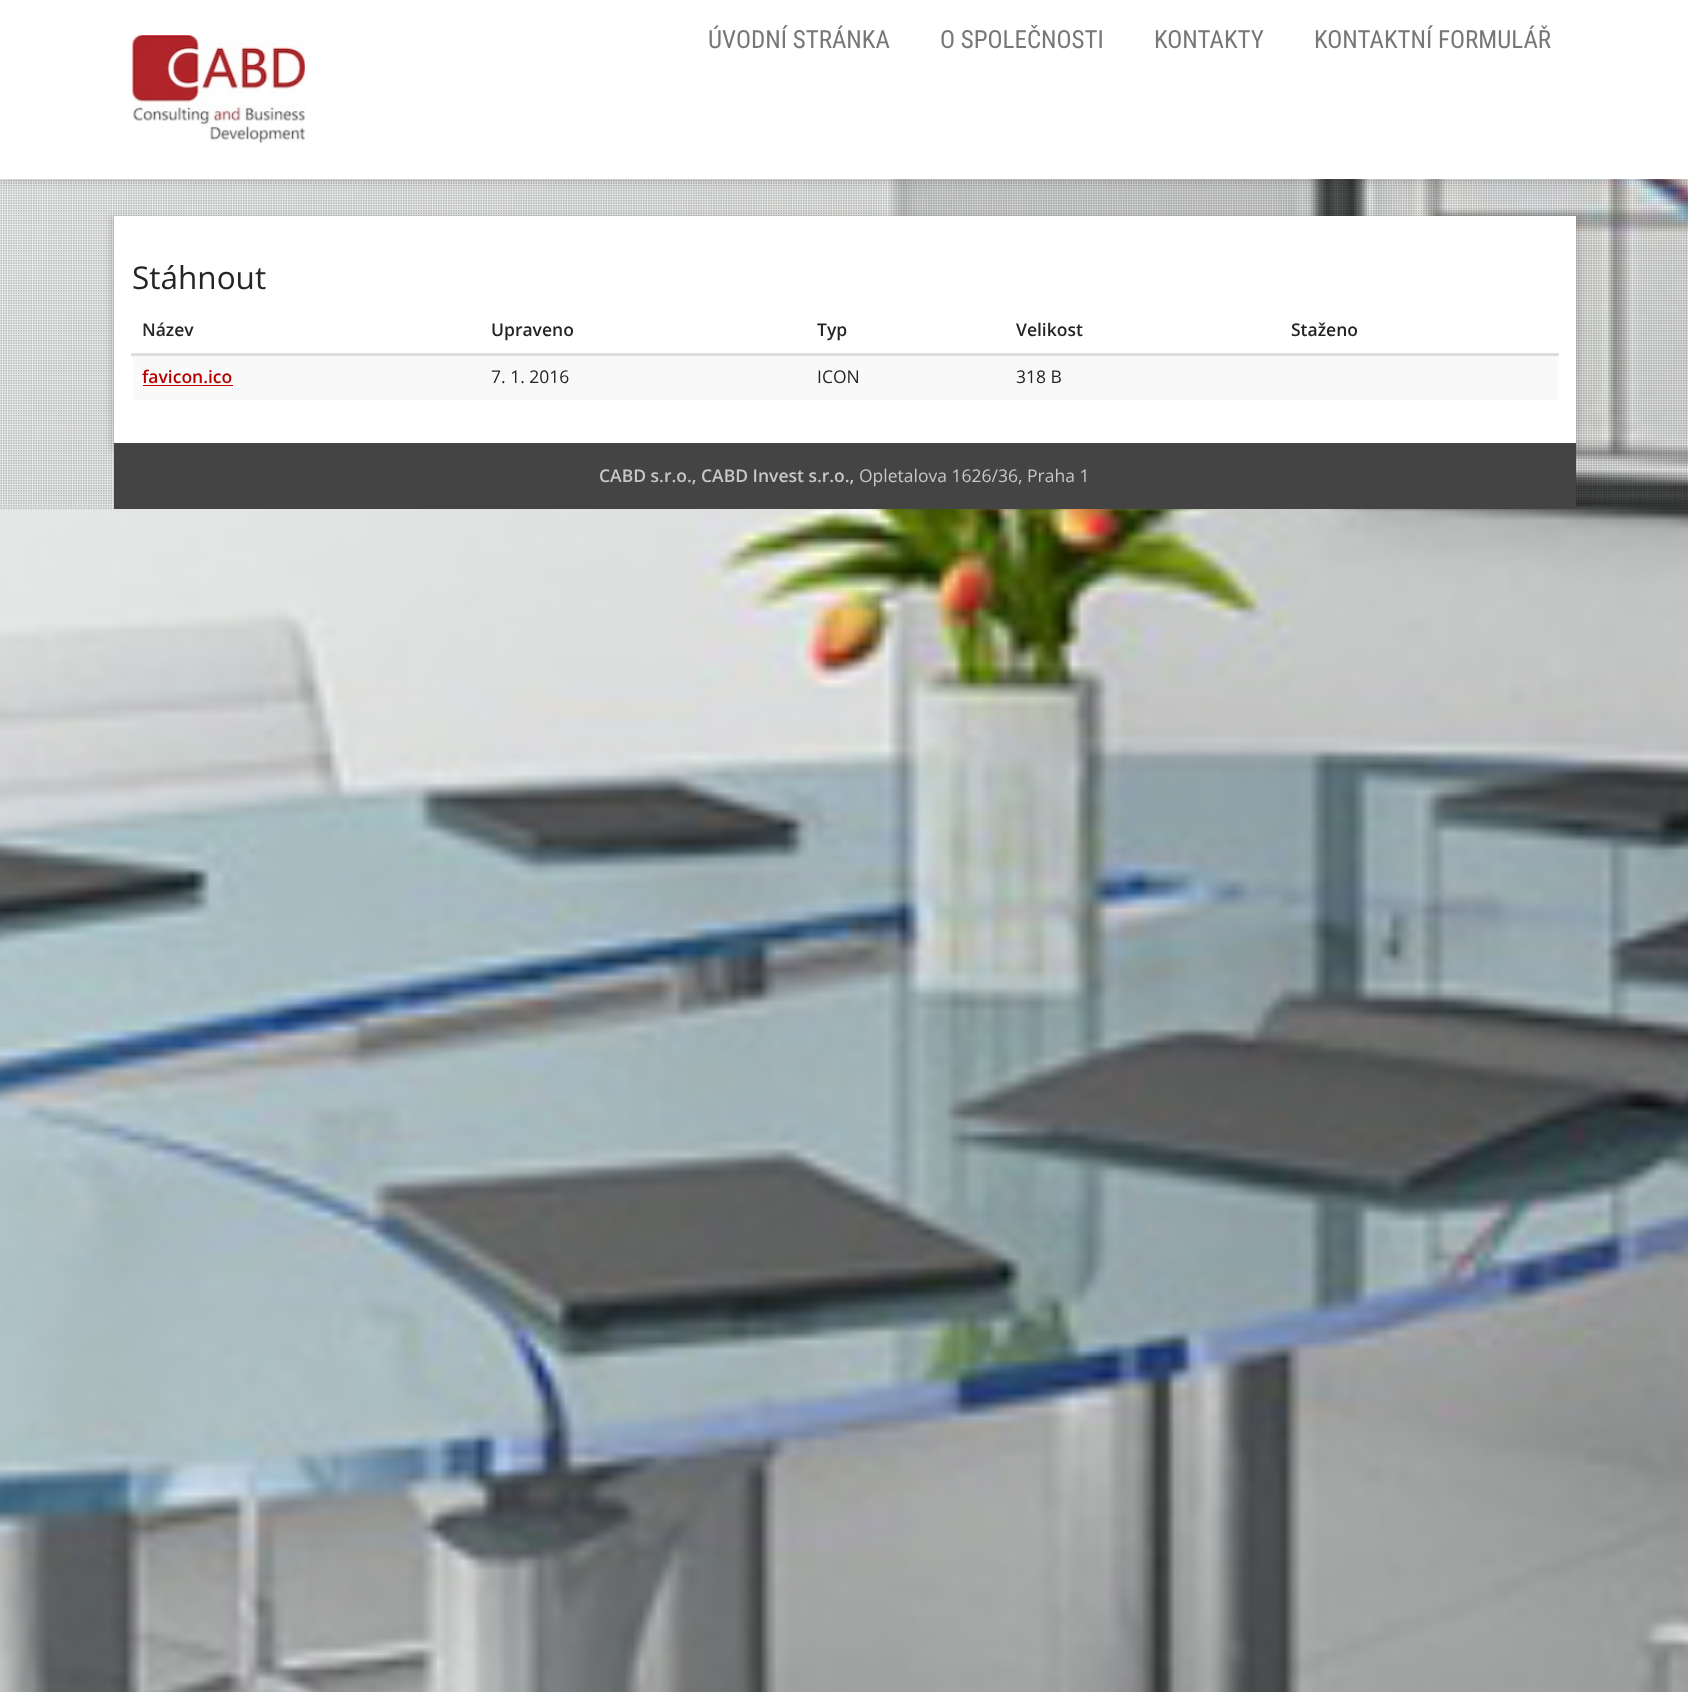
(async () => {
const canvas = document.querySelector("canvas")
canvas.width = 1688
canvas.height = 1692
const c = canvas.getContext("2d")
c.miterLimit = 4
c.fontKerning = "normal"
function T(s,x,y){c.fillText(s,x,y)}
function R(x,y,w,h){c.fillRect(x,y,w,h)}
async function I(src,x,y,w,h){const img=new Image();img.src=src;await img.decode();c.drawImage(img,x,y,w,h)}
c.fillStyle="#fff"
R(0,0,1688,1692)
await I("1.png",0,179,1688,1513)
await I("2.png",0,180,1687,329)
c.fillStyle="#00000033"
c.filter="blur(6px)"
c.beginPath()
c.rect(0,0,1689,179)
c.fill()
c.filter="none"
c.fillStyle="#fff"
R(0,0,1688,179)
await I("3.png",132,35,173,109)
c.font="25px Roboto Condensed"
c.fillStyle="#777"
T("ÚVODNÍ STRÁNKA",708,48)
T("O SPOLEČNOSTI",940,48)
T("KONTAKTY",1154,48)
T("KONTAKTNÍ FORMULÁŘ",1314,48)
c.fillStyle="#0000001a"
c.filter="blur(3px)"
c.beginPath()
c.rect(110,216,1470,234)
c.fill()
c.filter="none"
c.fillStyle="#fff"
R(114,216,1462,227)
c.font="31.5px Open Sans"
c.fillStyle="#252525"
T("Stáhnout",132,289)
c.font="600 17.5px Open Sans"
T("Název",142,336)
T("Upraveno",491,336)
T("Typ",817,336)
T("Velikost",1016,336)
c.fillStyle="#ddd"
R(131,353,1428,3)
c.fillStyle="#252525"
T("Staženo",1291,336)
c.fillStyle="#f9f9f9"
R(133,356,1425,44)
c.fillStyle="#b80000"
T("favicon.ico",142,383)
R(143,385,90,1)
c.font="17.5px Open Sans"
c.fillStyle="#252525"
T("7. 1. 2016",491,383)
T("ICON",817,383)
T("318 B",1016,383)
c.fillStyle="#444"
R(114,443,1462,66)
c.font="600 17.5px Open Sans"
c.fillStyle="#c7c7c7"
T("CABD s.r.o., CABD Invest s.r.o.,",599,482)
c.font="17.5px Open Sans"
T("Opletalova 1626/36, Praha 1",859,482)
})()
